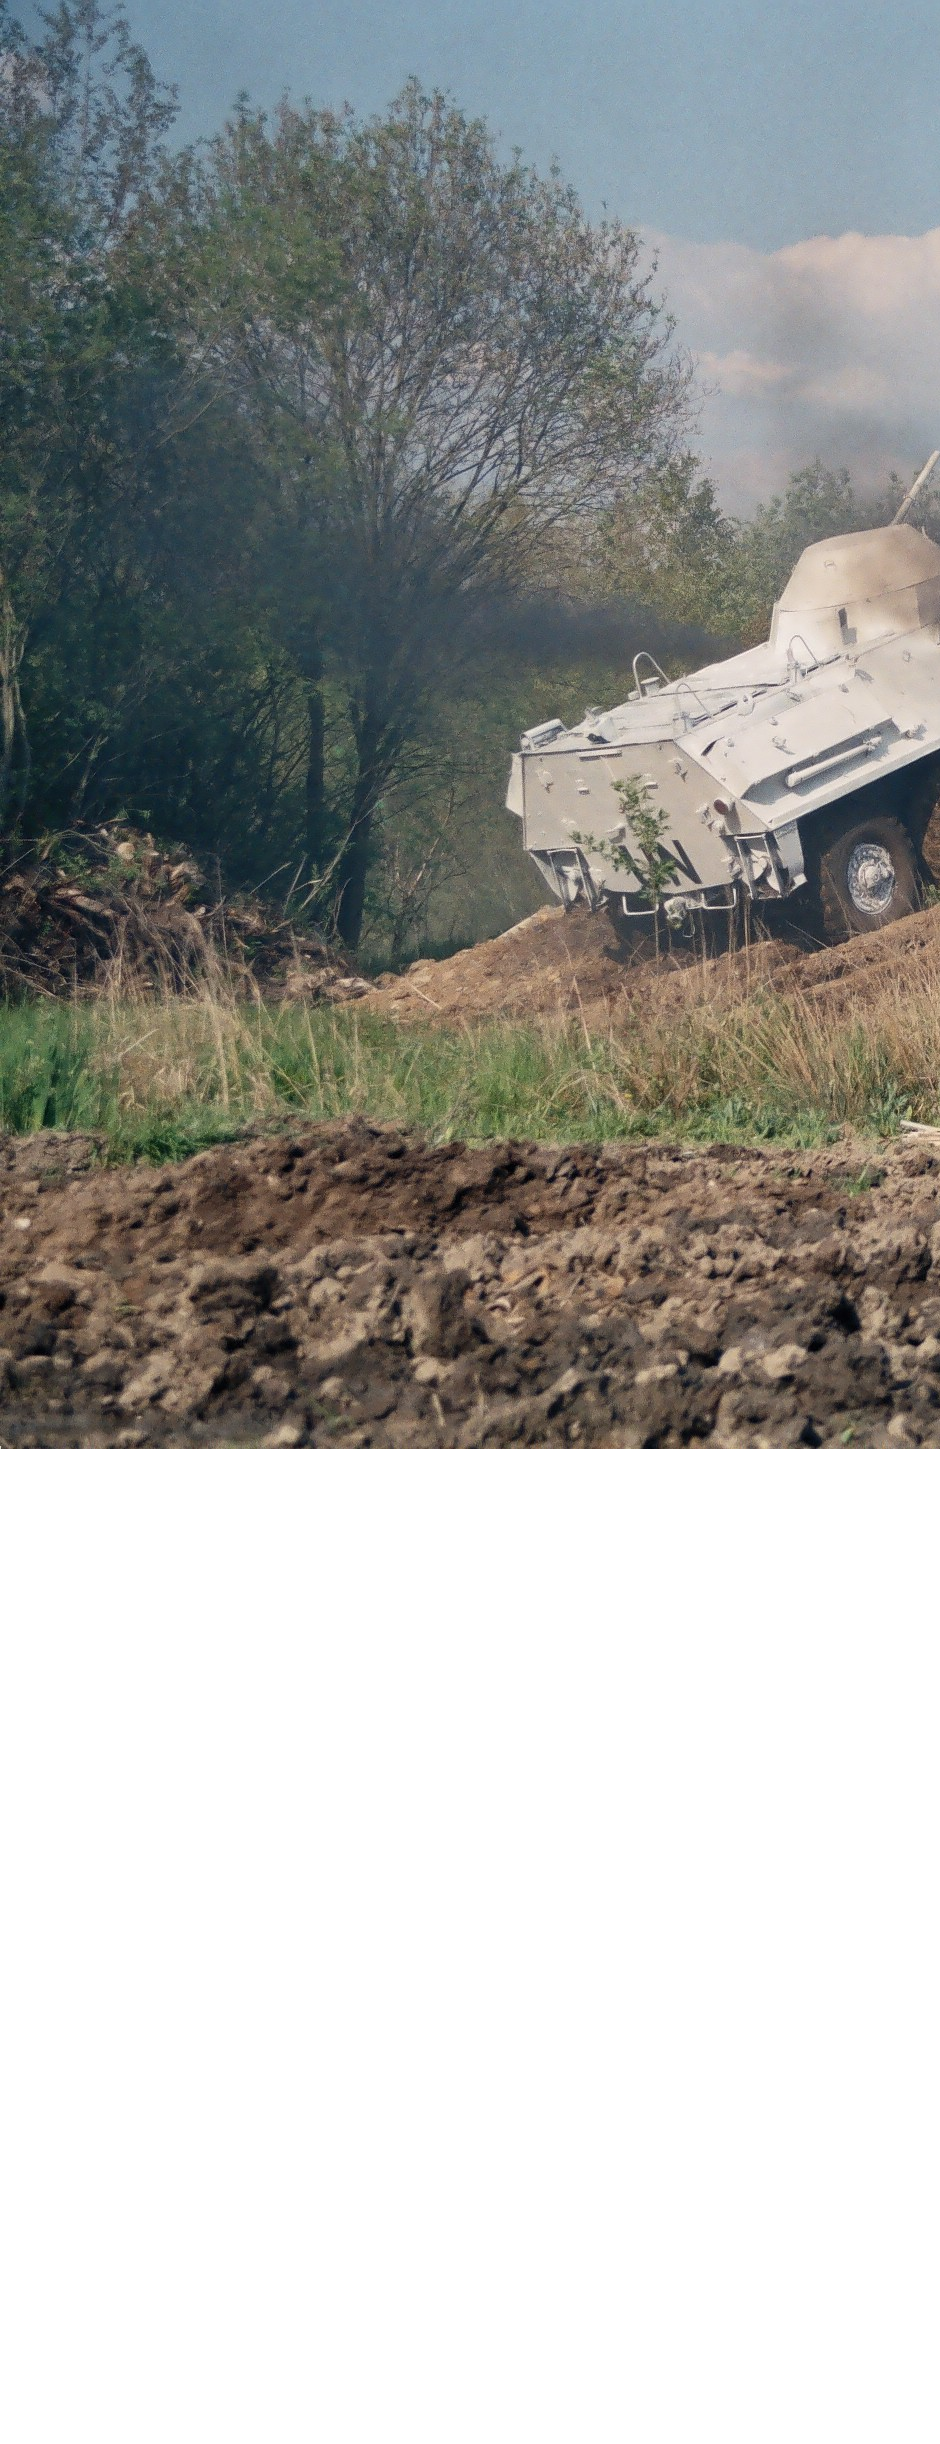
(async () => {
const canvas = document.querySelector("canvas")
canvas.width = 940
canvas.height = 2444
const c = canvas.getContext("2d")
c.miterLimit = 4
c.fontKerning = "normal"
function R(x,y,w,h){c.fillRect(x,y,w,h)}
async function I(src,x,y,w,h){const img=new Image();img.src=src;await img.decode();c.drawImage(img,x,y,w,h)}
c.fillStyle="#fff"
R(0,0,940,2444)
await I("1.png",0,0,940,1449)
})()
